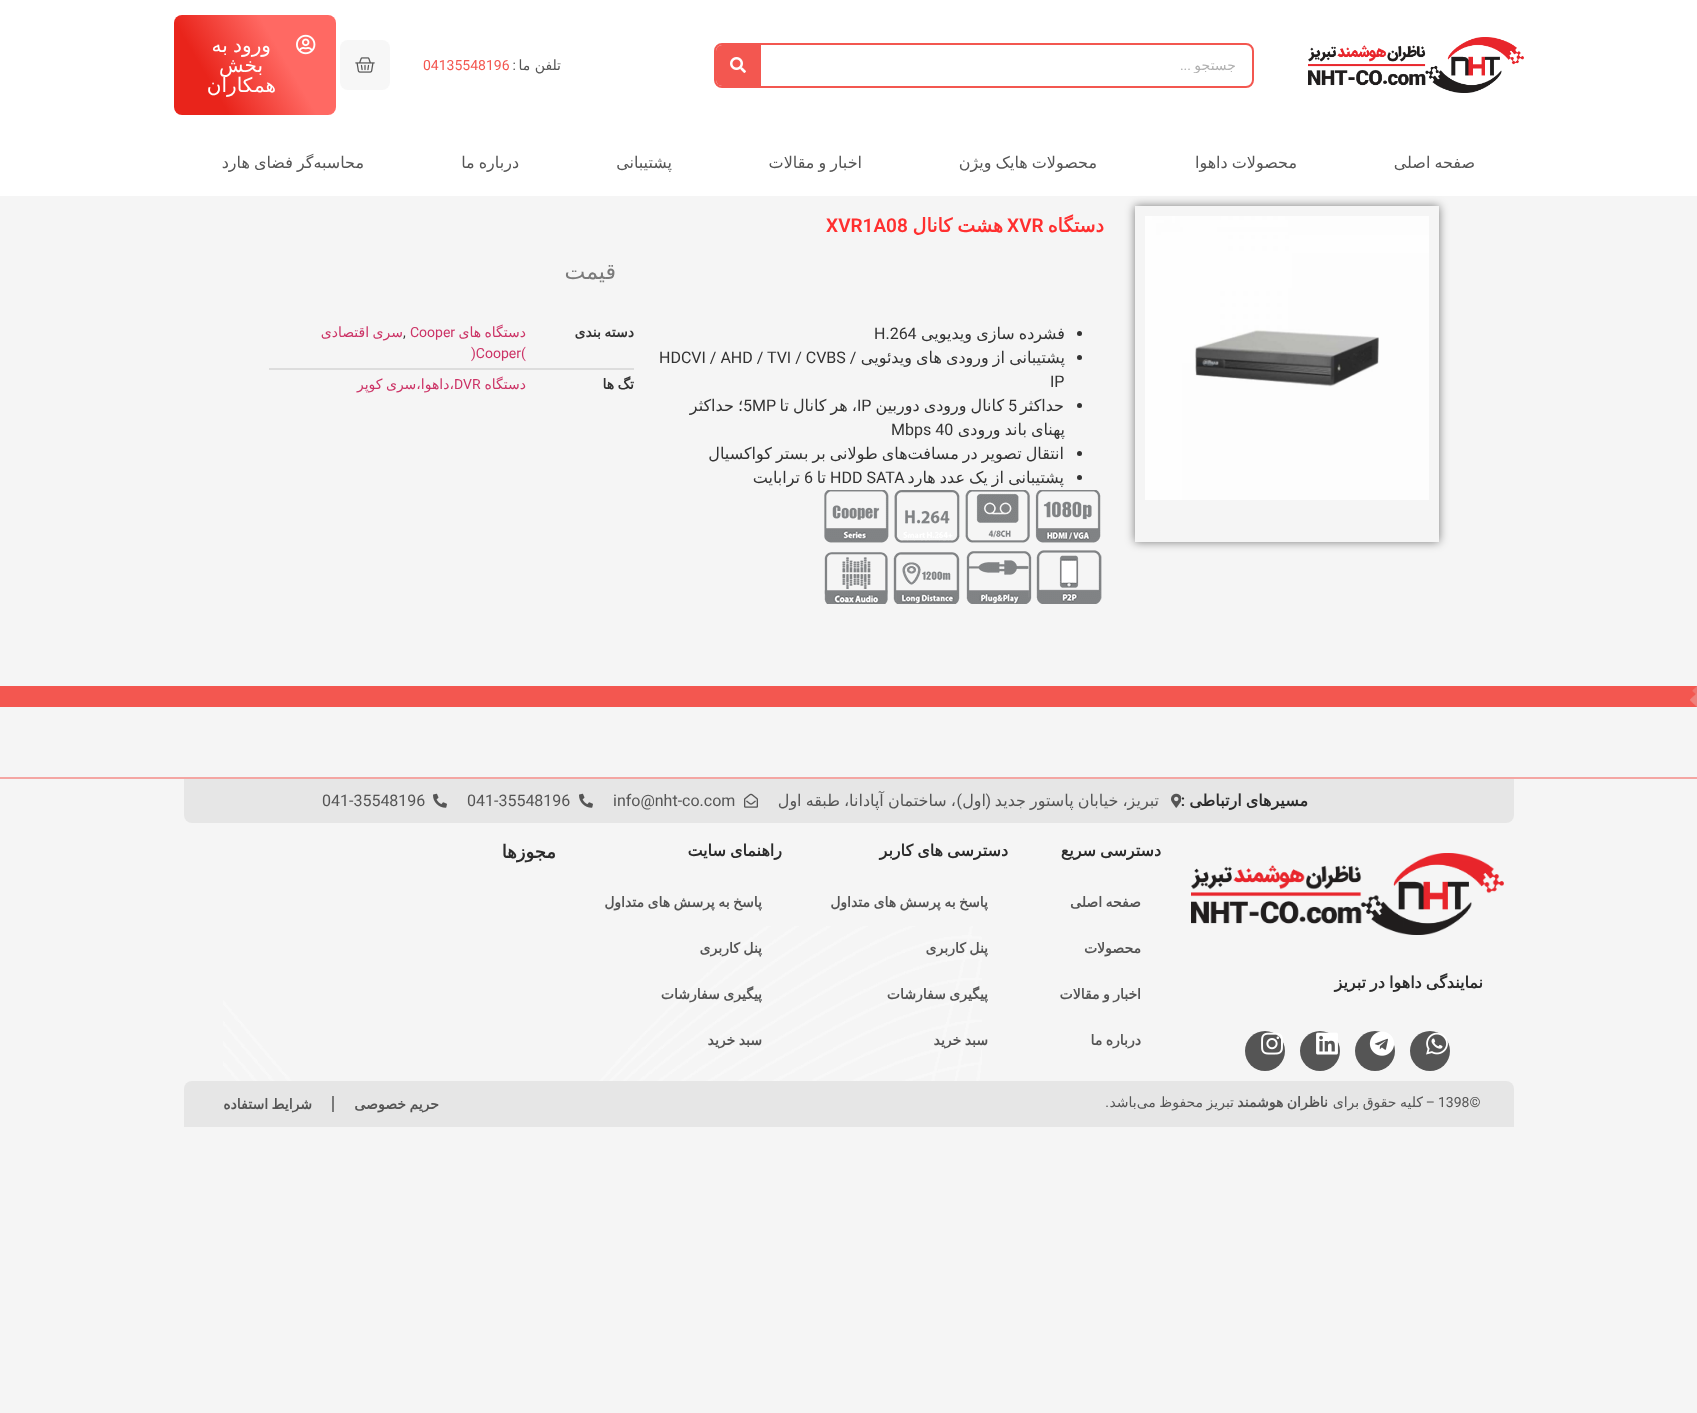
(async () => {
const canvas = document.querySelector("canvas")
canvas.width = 1697
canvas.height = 1413
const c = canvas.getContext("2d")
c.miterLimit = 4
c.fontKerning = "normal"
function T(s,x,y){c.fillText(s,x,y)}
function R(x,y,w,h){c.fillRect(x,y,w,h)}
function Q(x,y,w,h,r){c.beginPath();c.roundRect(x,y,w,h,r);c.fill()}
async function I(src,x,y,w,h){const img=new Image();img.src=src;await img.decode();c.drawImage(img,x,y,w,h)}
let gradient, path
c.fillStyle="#f5f5f5"
R(0,0,1697,1413)
c.fillStyle="#fff"
R(0,0,1697,196)
await I("1.png",1308,37,216,56)
c.beginPath()
c.roundRect(715,44,538,43,7)
c.strokeStyle="#f35750"
c.lineWidth=2
c.stroke()
c.save()
c.beginPath()
c.rect(790,57,447,16)
c.clip()
c.direction="rtl"
c.font="14px DejaVu Sans"
c.fillStyle="#b0b0b0"
T("جستجو",1236,70)
c.restore()
c.direction="rtl"
c.font="14px Roboto"
c.fillStyle="#b0b0b0"
T("...",1191,70)
c.fillStyle="#f35750"
c.beginPath()
c.roundRect(716,45,45,41,[6,0,0,6])
c.fill()
await I("2.png",730,57,16,16)
c.font="14px DejaVu Sans"
c.fillStyle="#555"
T("تلفن ما",561,70)
c.font="14px Roboto"
T(":",516,70)
c.direction="ltr"
c.fillStyle="#f35750"
T("04135548196",423,70)
c.fillStyle="#f7f7f7"
Q(340,40,50,50,8)
await I("3.png",355,57,20,16)
gradient = c.createLinearGradient(337,17,173,113)
gradient.addColorStop(.35,"#ff6963")
gradient.addColorStop(.75,"#e9241b")
c.fillStyle = gradient
Q(174,15,162,100,8)
await I("4.png",296,34,20,21)
c.wordSpacing="-1px"
c.direction="rtl"
c.font="20px DejaVu Sans"
c.fillStyle="#fff"
T("ورود به",271,52)
c.wordSpacing="0px"
T("بخش",263,72)
T("همکاران",276,92)
c.wordSpacing="-1px"
c.font="16px DejaVu Sans"
c.fillStyle="#555"
T("صفحه اصلی",1475,168)
T("محصولات داهوا",1297,168)
T("محصولات هایک ویژن",1097,168)
T("اخبار و مقالات",862,168)
c.wordSpacing="0px"
T("پشتیبانی",672,168)
c.wordSpacing="-1px"
T("درباره ما",519,168)
T("محاسبه‌گر فضای هارد",364,168)
c.save()
path = new Path2D("M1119 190h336v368h-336zm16 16h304v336h-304z")
c.clip(path,"evenodd")
c.fillStyle="#00000080"
c.filter="blur(5px)"
c.beginPath()
c.rect(1135,206,304,336)
c.fill()
c.filter="none"
c.restore()
await I("5.png",1145,216,284,284)
c.wordSpacing="0px"
c.font="bold 19px DejaVu Sans"
c.fillStyle="#ff2f2f"
T("دستگاه",1104,232)
c.direction="ltr"
c.font="600 19px Roboto"
T("XVR",1007,232)
c.wordSpacing="-1px"
c.direction="rtl"
c.font="bold 19px DejaVu Sans"
T("هشت کانال",1003,232)
c.wordSpacing="0px"
c.direction="ltr"
c.font="600 19px Roboto"
T("XVR1A08",826,232)
c.direction="rtl"
c.font="22px DejaVu Sans"
c.fillStyle="#7a7a7a"
T("قیمت",616,279)
c.fillStyle="#333"
c.beginPath()
c.arc(1079.5,333.5,2.5,0,7)
c.fill()
c.wordSpacing="-1px"
c.font="16px DejaVu Sans"
T("فشرده سازی ویدیویی",1065,339)
c.wordSpacing="0px"
c.direction="ltr"
c.font="16px Roboto"
T("H.264",874,339)
c.beginPath()
c.arc(1079.5,357.5,2.5,0,7)
c.fill()
c.wordSpacing="-1px"
c.direction="rtl"
c.font="16px DejaVu Sans"
T("پشتیبانی از ورودی های ویدئویی",1065,363)
c.wordSpacing="0px"
c.direction="ltr"
c.font="16px Roboto"
T("HDCVI / AHD / TVI / CVBS /",659,363)
T("IP",1050,387)
c.beginPath()
c.arc(1079.5,405.5,2.5,0,7)
c.fill()
c.direction="rtl"
c.font="16px DejaVu Sans"
T("حداکثر",1064,411)
c.direction="ltr"
c.font="16px Roboto"
T("5",1008,411)
c.wordSpacing="-1px"
c.direction="rtl"
c.font="16px DejaVu Sans"
T("کانال ورودی دوربین",1004,411)
T("، هر کانال تا",857,411)
c.wordSpacing="0px"
c.direction="ltr"
c.font="16px Roboto"
T("IP",857,411)
T("5MP",743,411)
c.wordSpacing="-1px"
c.direction="rtl"
c.font="16px DejaVu Sans"
T("؛ حداکثر",743,411)
T("پهنای باند ورودی",1065,435)
c.wordSpacing="0px"
c.direction="ltr"
c.font="16px Roboto"
T("Mbps 40",891,435)
c.beginPath()
c.arc(1079.5,453.5,2.5,0,7)
c.fill()
c.wordSpacing="-1px"
c.direction="rtl"
c.font="16px DejaVu Sans"
T("انتقال تصویر در مسافت‌های طولانی بر بستر کواکسیال",1064,459)
c.beginPath()
c.arc(1079.5,477.5,2.5,0,7)
c.fill()
T("پشتیبانی از یک عدد هارد",1064,483)
c.wordSpacing="0px"
c.direction="ltr"
c.font="16px Roboto"
T("HDD SATA",830,483)
c.direction="rtl"
c.font="16px DejaVu Sans"
T("تا",826,483)
c.direction="ltr"
c.font="16px Roboto"
T("6",804,483)
c.direction="rtl"
c.font="16px DejaVu Sans"
T("ترابایت",800,483)
await I("6.png",824,490,278,114)
c.wordSpacing="-1px"
c.font="bold 14px DejaVu Sans"
T("دسته بندی",634,337)
c.font="14px DejaVu Sans"
c.fillStyle="#c36"
T("دستگاه های",526,337)
c.wordSpacing="0px"
c.direction="ltr"
c.font="14px Roboto"
T("Cooper",410,337)
c.fillStyle="#333"
T(",",403,337)
c.wordSpacing="-1px"
c.direction="rtl"
c.font="14px DejaVu Sans"
c.fillStyle="#c36"
T("سری اقتصادی",403,337)
c.wordSpacing="0px"
c.direction="ltr"
c.font="14px Roboto"
T(")Cooper(",471,358)
c.fillStyle="#ddd"
R(269,368,365,2)
c.wordSpacing="-1px"
c.direction="rtl"
c.font="bold 14px DejaVu Sans"
c.fillStyle="#333"
T("تگ ها",634,389)
c.wordSpacing="0px"
c.font="14px DejaVu Sans"
c.fillStyle="#c36"
T("دستگاه",526,389)
c.direction="ltr"
c.font="14px Roboto"
T("DVR",454,389)
c.wordSpacing="-1px"
c.direction="rtl"
c.font="14px DejaVu Sans"
T("،داهوا،سری کوپر",454,389)
c.fillStyle="#f35750"
R(0,686,1697,21)
await I("7.png",1690,686,7,21)
c.fillStyle="#f4a6a3"
R(0,777,1697,2)
c.fillStyle="#e6e6e6"
c.beginPath()
c.roundRect(184,779,1330,44,[0,0,8,8])
c.fill()
c.font="bold 16px DejaVu Sans"
c.fillStyle="#2c2c2c"
T("مسیرهای ارتباطی",1308,806)
c.wordSpacing="0px"
c.font="600 16px Roboto"
T(":",1185,806)
await I("8.png",1171,793,10,15)
c.wordSpacing="-1px"
c.font="16px DejaVu Sans"
c.fillStyle="#555"
T("، ساختمان آپادانا، طبقه اول",956,806)
T("تبریز، خیابان پاستور جدید",1159,806)
c.wordSpacing="0px"
c.font="16px Roboto"
T("(",991,806)
c.font="16px DejaVu Sans"
T("اول",986,806)
c.font="16px Roboto"
T(")",962,806)
await I("9.png",744,793,14,15)
c.direction="ltr"
T("info@nht-co.com",613,806)
await I("10.png",579,793,14,15)
T("041-35548196",467,806)
await I("10.png",433,793,14,15)
T("041-35548196",322,806)
await I("11.png",1191,853,313,82)
c.wordSpacing="-1px"
c.direction="rtl"
c.font="bold 16px DejaVu Sans"
c.fillStyle="#2c2c2c"
T("نمایندگی داهوا در تبریز",1483,988)
c.fillStyle="#555"
c.beginPath()
c.arc(1430,1051,20,0,7)
c.fill()
await I("12.png",1426,1032,22,23)
c.beginPath()
c.arc(1375,1051,20,0,7)
c.fill()
await I("13.png",1369,1031,25,25)
c.beginPath()
c.arc(1320,1051,20,0,7)
c.fill()
await I("14.png",1316,1032,22,23)
c.beginPath()
c.arc(1265,1051,20,0,7)
c.fill()
await I("15.png",1261,1032,22,23)
c.fillStyle="#2c2c2c"
T("دسترسی سریع",1161,856)
c.font="bold 14px DejaVu Sans"
c.fillStyle="#555"
T("صفحه اصلی",1141,907)
c.wordSpacing="0px"
T("محصولات",1141,953)
c.wordSpacing="-1px"
T("اخبار و مقالات",1141,999)
T("درباره ما",1141,1045)
c.font="bold 16px DejaVu Sans"
c.fillStyle="#2c2c2c"
T("دسترسی های کاربر",1008,856)
c.font="bold 14px DejaVu Sans"
c.fillStyle="#555"
T("پاسخ به پرسش های متداول",988,907)
await I("16.png",223,926,759,155)
T("پنل کاربری",988,953)
T("پیگیری سفارشات",988,999)
T("سبد خرید",988,1045)
c.font="bold 16px DejaVu Sans"
c.fillStyle="#2c2c2c"
T("راهنمای سایت",782,856)
c.font="bold 14px DejaVu Sans"
c.fillStyle="#555"
T("پاسخ به پرسش های متداول",762,907)
T("پنل کاربری",762,953)
T("پیگیری سفارشات",762,999)
T("سبد خرید",762,1045)
c.wordSpacing="0px"
c.font="bold 18px DejaVu Sans"
c.fillStyle="#2c2c2c"
T("مجوزها",556,858)
c.fillStyle="#e6e6e6"
c.beginPath()
c.roundRect(184,1081,1330,46,[8,8,0,0])
c.fill()
c.direction="ltr"
c.font="14px Roboto"
c.fillStyle="#555"
T("1398©",1438,1107)
c.direction="rtl"
T("–",1435,1107)
c.wordSpacing="-1px"
c.font="14px DejaVu Sans"
T("کلیه حقوق برای",1423,1107)
c.font="bold 14px DejaVu Sans"
T("ناظران هوشمند",1328,1107)
c.font="14px DejaVu Sans"
T("تبریز محفوظ می‌باشد",1234,1107)
c.wordSpacing="0px"
c.font="14px Roboto"
T(".",1109,1107)
c.wordSpacing="-1px"
c.font="bold 14px DejaVu Sans"
T("حریم خصوصی",439,1109)
c.fillStyle="#7a7a7a"
R(332,1096,2,16)
c.fillStyle="#555"
T("شرایط استفاده",312,1109)
})()
